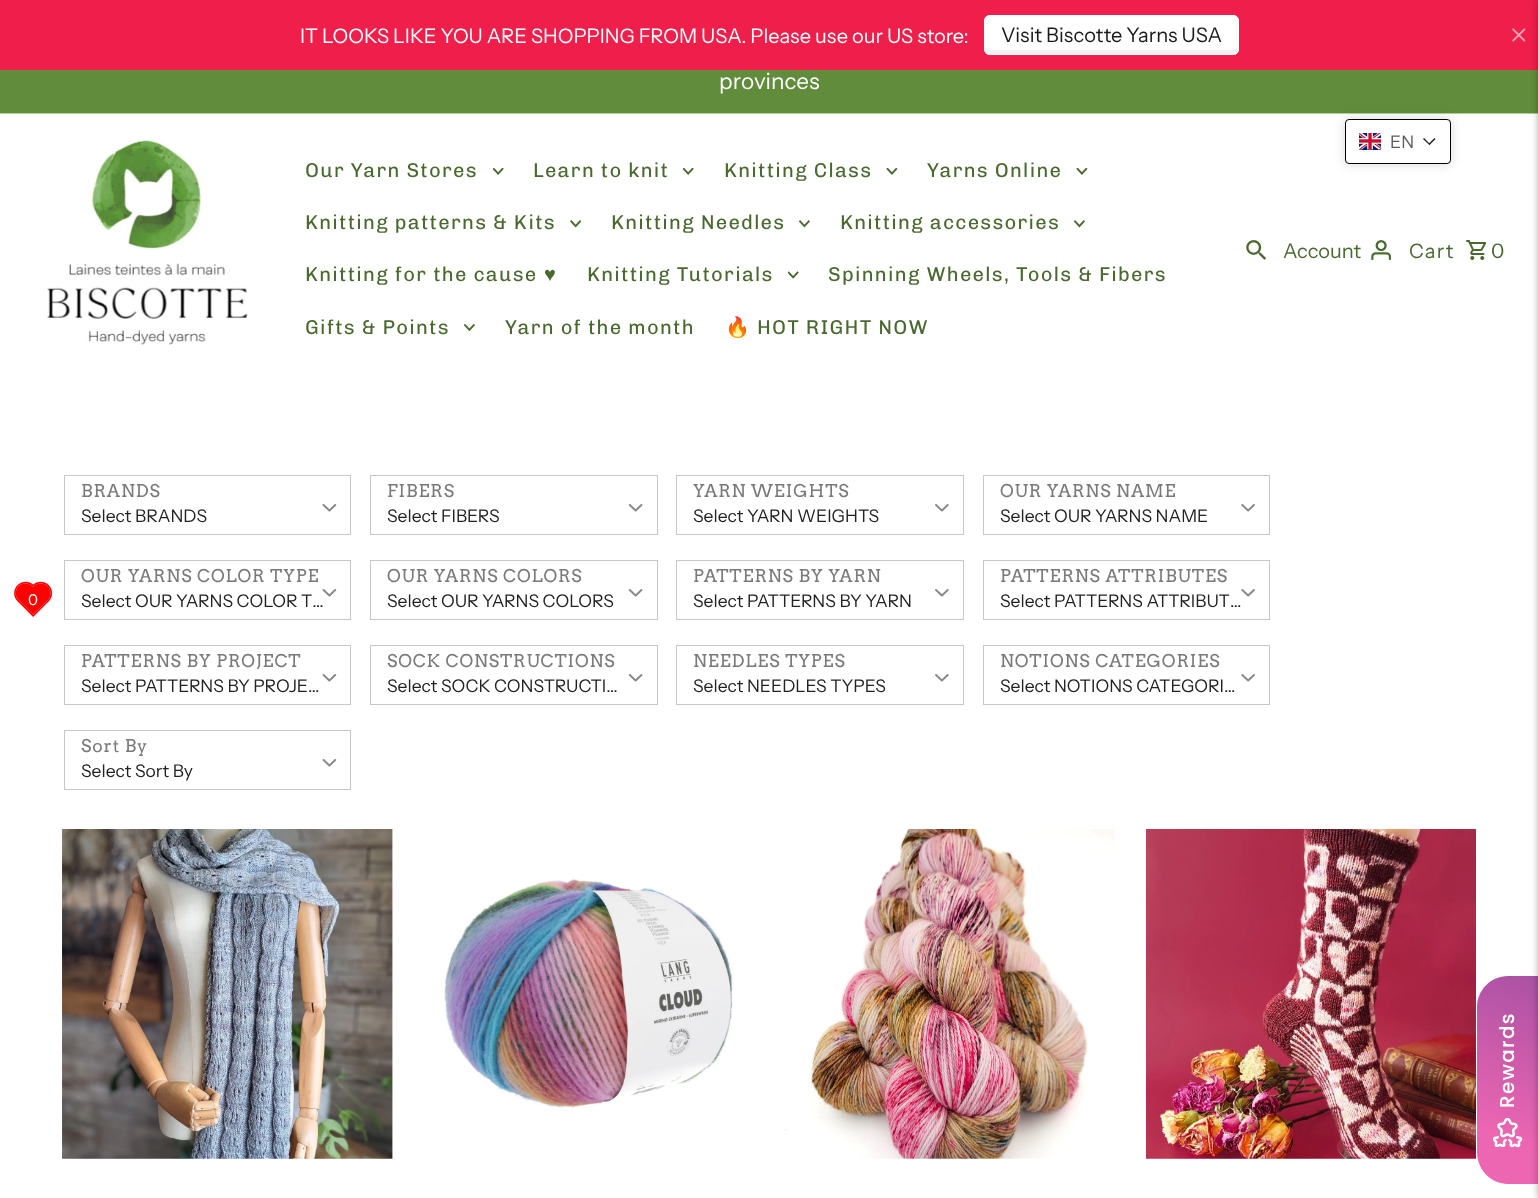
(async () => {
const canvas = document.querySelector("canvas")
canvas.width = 1538
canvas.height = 1198
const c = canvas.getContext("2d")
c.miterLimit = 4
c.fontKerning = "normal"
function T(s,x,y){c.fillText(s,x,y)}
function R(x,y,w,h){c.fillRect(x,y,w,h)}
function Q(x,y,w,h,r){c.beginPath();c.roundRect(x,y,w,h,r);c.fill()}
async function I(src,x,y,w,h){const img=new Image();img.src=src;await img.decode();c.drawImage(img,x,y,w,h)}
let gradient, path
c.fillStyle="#fff"
R(0,0,1538,1198)
c.fillStyle="#f01e4a"
R(0,0,1538,70)
c.font="20px Instrument Sans"
c.fillStyle="#fff"
T("IT LOOKS LIKE YOU ARE SHOPPING FROM USA. Please use our US store:",300,43)
Q(984,15,255,40,6)
c.fillStyle="#f2f2f2"
path = new Path2D("M985 45v4c0 3 2 5 5 5h243c3 0 5-2 5-5v-4c0 3-3 5-5 5h-243c-3 0-5-2-5-5z")
c.fill(path)
c.beginPath()
c.roundRect(984.5,15.5,254,39,5.5)
c.strokeStyle="#fff"
c.stroke()
c.fillStyle="#1a1a1a"
T("Visit Biscotte Yarns USA",1001,42)
await I("1.png",1512,28,14,14)
c.fillStyle="#add090"
R(0,113,1538,1)
c.fillStyle="#608c3b"
R(0,70,1538,43)
c.font="22.5px Instrument Sans"
c.fillStyle="#fff"
T("provinces",719,89)
await I("2.png",47,139,201,206)
c.letterSpacing="1.25px"
c.font="20px Chivo"
c.fillStyle="#49692e"
T("Our Yarn Stores",305,177)
await I("3.png",493,168,11,7)
T("Learn to knit",533,177)
await I("3.png",683,168,11,7)
T("Knitting Class",724,177)
await I("4.png",886,168,12,7)
T("Yarns Online",927,177)
await I("4.png",1076,168,12,7)
T("Knitting patterns & Kits",305,229)
await I("5.png",570,220,11,8)
T("Knitting Needles",611,229)
await I("6.png",799,220,11,8)
T("Knitting accessories",840,229)
await I("6.png",1074,220,11,8)
T("Knitting for the cause",305,281)
c.font="20px Liberation Sans"
T("♥",544,281)
c.font="20px Chivo"
T("Knitting Tutorials",587,281)
await I("7.png",788,271,11,8)
T("Spinning Wheels, Tools & Fibers",828,281)
T("Gifts & Points",305,334)
await I("8.png",464,324,11,7)
T("Yarn of the month",505,334)
c.font="20px Noto Color Emoji"
T("🔥",725,334)
c.font="20px Chivo"
T("HOT RIGHT NOW",757,334)
await I("9.png",1246,240,20,20)
c.letterSpacing="0px"
c.font="20px Instrument Sans"
T("Account",1283,258)
await I("10.png",1371,240,20,20)
c.letterSpacing="1.25px"
T("Cart",1409,258)
await I("11.png",1466,240,20,20)
T("0",1491,258)
c.strokeStyle="#c7c7c7"
c.strokeRect(64.5,475.5,286,59)
c.letterSpacing="0.9px"
c.font="17.5px Arvo"
c.fillStyle="#7a7a7a"
T("BRANDS",81,497)
await I("12.png",322,504,15,8)
c.letterSpacing="0px"
c.font="17.5px Instrument Sans"
c.fillStyle="#222"
T("Select BRANDS",81,522)
c.strokeRect(370.5,475.5,287,59)
c.letterSpacing="0.9px"
c.font="17.5px Arvo"
c.fillStyle="#7a7a7a"
T("FIBERS",387,497)
await I("13.png",628,504,15,8)
c.letterSpacing="0px"
c.font="17.5px Instrument Sans"
c.fillStyle="#222"
T("Select FIBERS",387,522)
c.strokeRect(676.5,475.5,287,59)
c.letterSpacing="0.9px"
c.font="17.5px Arvo"
c.fillStyle="#7a7a7a"
T("YARN WEIGHTS",693,497)
await I("14.png",935,504,14,8)
c.letterSpacing="0px"
c.font="17.5px Instrument Sans"
c.fillStyle="#222"
T("Select YARN WEIGHTS",693,522)
c.strokeRect(983.5,475.5,286,59)
c.letterSpacing="0.9px"
c.font="17.5px Arvo"
c.fillStyle="#7a7a7a"
T("OUR YARNS NAME",1000,497)
await I("15.png",1241,504,14,8)
c.letterSpacing="0px"
c.font="17.5px Instrument Sans"
c.fillStyle="#222"
T("Select OUR YARNS NAME",1000,522)
c.strokeRect(64.5,560.5,286,59)
c.letterSpacing="0.9px"
c.font="17.5px Arvo"
c.fillStyle="#7a7a7a"
T("OUR YARNS COLOR TYPE",81,582)
c.letterSpacing="0px"
c.font="17.5px Instrument Sans"
c.fillStyle="#222"
T("Select OUR YARNS COLOR T…",81,607)
await I("12.png",322,589,15,8)
c.strokeRect(370.5,560.5,287,59)
c.letterSpacing="0.9px"
c.font="17.5px Arvo"
c.fillStyle="#7a7a7a"
T("OUR YARNS COLORS",387,582)
await I("13.png",628,589,15,8)
c.letterSpacing="0px"
c.font="17.5px Instrument Sans"
c.fillStyle="#222"
T("Select OUR YARNS COLORS",387,607)
c.strokeRect(676.5,560.5,287,59)
c.letterSpacing="0.9px"
c.font="17.5px Arvo"
c.fillStyle="#7a7a7a"
T("PATTERNS BY YARN",693,582)
await I("14.png",935,589,14,8)
c.letterSpacing="0px"
c.font="17.5px Instrument Sans"
c.fillStyle="#222"
T("Select PATTERNS BY YARN",693,607)
c.strokeRect(983.5,560.5,286,59)
c.letterSpacing="0.9px"
c.font="17.5px Arvo"
c.fillStyle="#7a7a7a"
T("PATTERNS ATTRIBUTES",1000,582)
await I("15.png",1241,589,14,8)
c.letterSpacing="0px"
c.font="17.5px Instrument Sans"
c.fillStyle="#222"
T("Select PATTERNS ATTRIBUT…",1000,607)
c.strokeRect(64.5,645.5,286,59)
c.letterSpacing="0.9px"
c.font="17.5px Arvo"
c.fillStyle="#7a7a7a"
T("PATTERNS BY PROJECT",81,667)
await I("12.png",322,674,15,8)
c.letterSpacing="0px"
c.font="17.5px Instrument Sans"
c.fillStyle="#222"
T("Select PATTERNS BY PROJE…",81,692)
c.strokeRect(370.5,645.5,287,59)
c.letterSpacing="0.9px"
c.font="17.5px Arvo"
c.fillStyle="#7a7a7a"
T("SOCK CONSTRUCTIONS",387,667)
await I("13.png",628,674,15,8)
c.letterSpacing="0px"
c.font="17.5px Instrument Sans"
c.fillStyle="#222"
T("Select SOCK CONSTRUCTI…",387,692)
c.strokeRect(676.5,645.5,287,59)
c.letterSpacing="0.9px"
c.font="17.5px Arvo"
c.fillStyle="#7a7a7a"
T("NEEDLES TYPES",693,667)
await I("14.png",935,674,14,8)
c.letterSpacing="0px"
c.font="17.5px Instrument Sans"
c.fillStyle="#222"
T("Select NEEDLES TYPES",693,692)
c.strokeRect(983.5,645.5,286,59)
c.letterSpacing="0.9px"
c.font="17.5px Arvo"
c.fillStyle="#7a7a7a"
T("NOTIONS CATEGORIES",1000,667)
await I("15.png",1241,674,14,8)
c.letterSpacing="0px"
c.font="17.5px Instrument Sans"
c.fillStyle="#222"
T("Select NOTIONS CATEGORI…",1000,692)
c.strokeRect(64.5,730.5,286,59)
c.letterSpacing="0.9px"
c.font="17.5px Arvo"
c.fillStyle="#7a7a7a"
T("Sort By",81,752)
await I("12.png",322,759,15,8)
c.letterSpacing="0px"
c.font="17.5px Instrument Sans"
c.fillStyle="#222"
T("Select Sort By",81,777)
await I("16.png",62,829,331,330)
await I("17.png",444,879,289,229)
await I("18.png",785,829,330,330)
await I("19.png",1146,829,330,330)
c.fillStyle="#00000026"
c.filter="blur(6px)"
c.beginPath()
c.roundRect(1345,119,106,45,4)
c.fill()
c.filter="none"
c.fillStyle="#fff"
c.beginPath()
c.roundRect(1345.5,119.5,105,44,3.5)
c.fill()
c.strokeStyle="#000"
c.stroke()
await I("20.png",1359,133,22,17)
c.fillStyle="#5c5c5c"
T("EN",1390,148)
c.fillStyle="#1a1a1a"
path = new Path2D("M1434.5 138l1 1l-6 6l-1-1z")
c.fill(path)
path = new Path2D("M1424 138l6 6l-.5 1l-6.5-6z")
c.fill(path)
await I("21.png",14,581,39,36)
c.font="15px Instrument Sans"
c.fillStyle="#fff"
T("0",28,605)
c.fillStyle="#44444414"
c.filter="blur(5px)"
c.beginPath()
c.roundRect(1406,1056,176,58,29)
c.fill()
c.filter="none"
gradient = c.createLinearGradient(1472,1182,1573,895)
gradient.addColorStop(.17,"#ed66b2")
gradient.addColorStop(1,"#86469c")
c.fillStyle = gradient
path = new Path2D("M1477 1152v-145c0-17 14-31 31-31h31v208h-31c-17 0-31-14-31-32z")
c.fill(path)
c.fillStyle="#00000080"
c.filter="blur(4.5px)"
c.beginPath()
c.rect(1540,0,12,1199)
c.fill()
c.filter="none"
c.letterSpacing="1.25px"
c.font="500 20px Poppins"
c.fillStyle="#fff"
c.save()
c.translate(1514,1108)
c.rotate(-90 * Math.PI / 180)
c.fillText("Rewards",0,0)
c.restore()
await I("22.png",1493,1118,30,30)
})()
